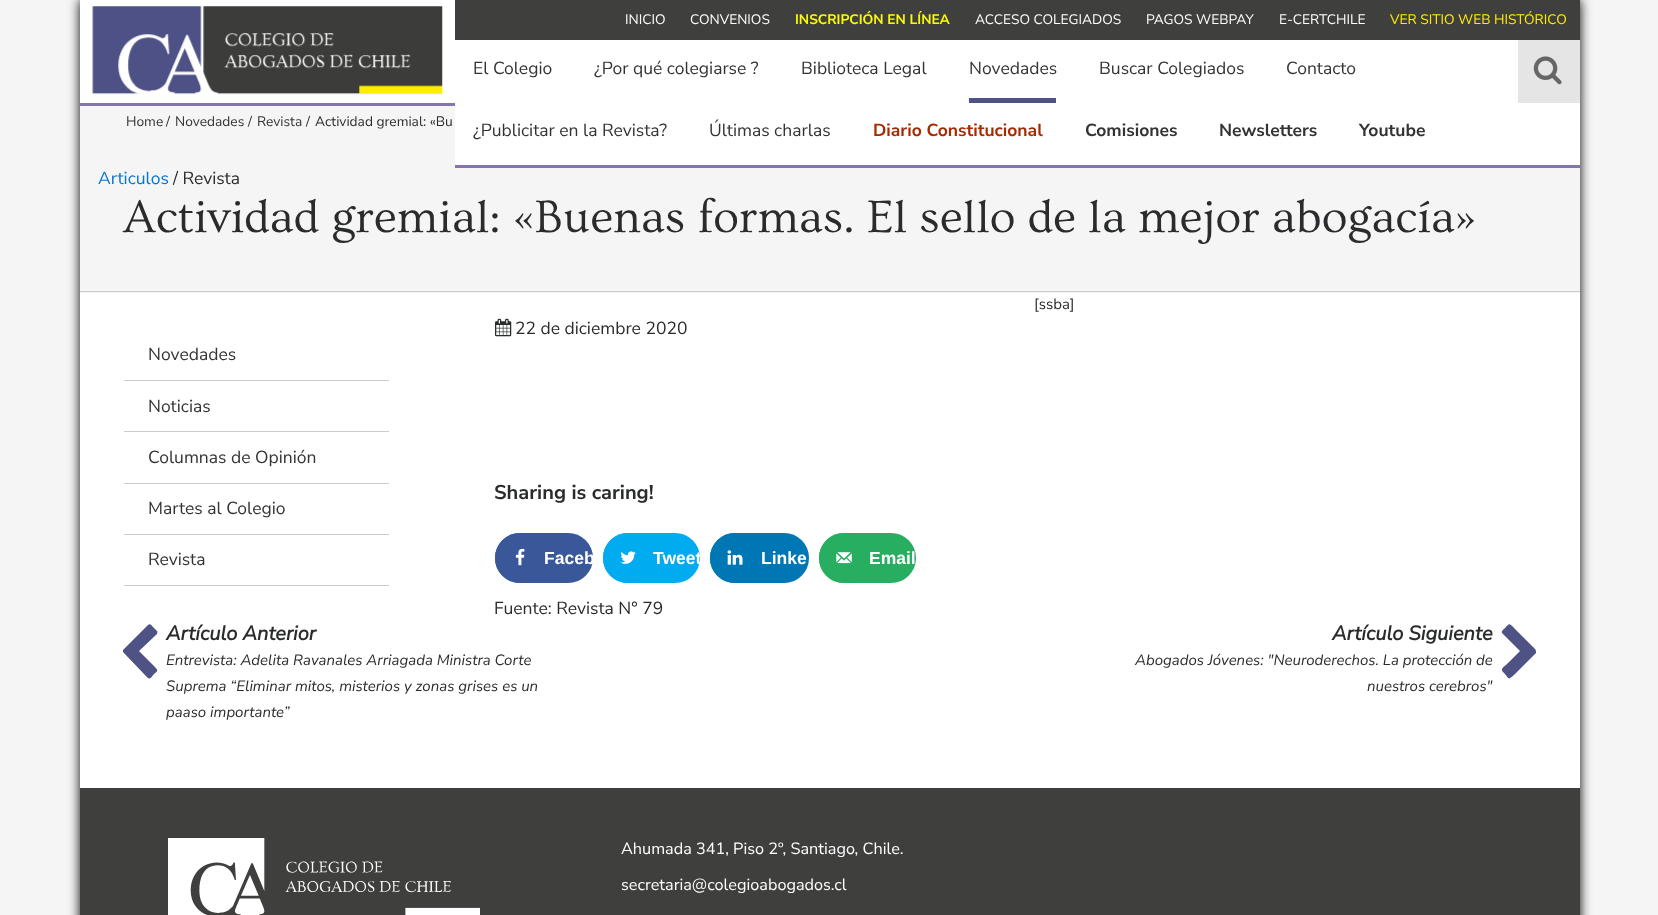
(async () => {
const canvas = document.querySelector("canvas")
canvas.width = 1658
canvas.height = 915
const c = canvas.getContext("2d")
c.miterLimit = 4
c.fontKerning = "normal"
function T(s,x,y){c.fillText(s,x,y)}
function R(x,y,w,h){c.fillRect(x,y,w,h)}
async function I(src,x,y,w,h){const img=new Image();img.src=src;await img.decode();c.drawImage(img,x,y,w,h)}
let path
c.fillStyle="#f5f5f5"
R(0,0,1658,915)
c.fillStyle="#000"
c.filter="blur(6px)"
c.beginPath()
c.rect(80,0,1500,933)
c.fill()
c.filter="none"
c.fillStyle="#fff"
R(80,293,1500,495)
R(80,0,375,103)
c.fillStyle="#8575ac"
R(80,103,375,3)
await I("1.png",92,6,351,89)
c.fillStyle="#3f3f3e"
R(455,0,1125,40)
c.font="13.75px Nunito Sans"
c.fillStyle="#fff"
T("INICIO",625,24)
T("CONVENIOS",690,24)
c.font="bold 13.75px Nunito Sans"
c.fillStyle="#fcfc05"
T("INSCRIPCIÓN EN LÍNEA",795,24)
c.font="13.75px Nunito Sans"
c.fillStyle="#fff"
T("ACCESO COLEGIADOS",975,24)
T("PAGOS WEBPAY",1146,24)
T("E-CERTCHILE",1279,24)
c.fillStyle="#ffed00"
T("VER SITIO WEB HISTÓRICO",1390,24)
c.fillStyle="#f5f5f5"
R(80,106,1500,187)
c.fillStyle="#fff"
R(455,40,1125,125)
c.fillStyle="#8575ac"
R(455,165,1125,3)
c.font="17.5px Nunito Sans"
c.fillStyle="#333"
T("El Colegio",473,74)
T("¿Por qué colegiarse ?",594,74)
T("Biblioteca Legal",801,74)
c.fillStyle="#4f5285"
R(969,98,87,5)
c.fillStyle="#333"
T("Novedades",969,74)
T("Buscar Colegiados",1099,74)
T("Contacto",1286,74)
T("¿Publicitar en la Revista?",473,136)
T("Últimas charlas",709,136)
c.font="bold 17.5px Nunito Sans"
c.fillStyle="#a62a02"
T("Diario Constitucional",873,136)
c.fillStyle="#333"
T("Comisiones",1085,136)
T("Newsletters",1219,136)
T("Youtube",1359,136)
c.fillStyle="#e5e5e5"
R(1518,40,62,63)
await I("2.png",1533,56,29,29)
c.fillStyle="#ccc"
R(80,291,1500,1)
c.font="13.75px Nunito Sans"
c.fillStyle="#333"
T("Home",126,126)
c.fillStyle="#292b2c"
T("/",166,126)
c.fillStyle="#333"
T("Novedades",175,126)
c.fillStyle="#292b2c"
T("/",248,126)
c.fillStyle="#333"
T("Revista",257,126)
c.fillStyle="#292b2c"
T("/",306,126)
T("Actividad gremial: «Bu",315,126)
c.font="17.5px Nunito Sans"
c.fillStyle="#0275d8"
T("Articulos",98,184)
c.fillStyle="#292b2c"
T("/ Revista",173,184)
c.font="47.5px Ovo"
T("Actividad gremial: «Buenas formas. El sello de la mejor abogacía»",123,232)
c.fillStyle="#ccc"
R(124,380,265,1)
c.font="17.5px Nunito Sans"
c.fillStyle="#333"
T("Novedades",148,360)
c.fillStyle="#ccc"
R(124,431,265,1)
c.fillStyle="#333"
T("Noticias",148,412)
c.fillStyle="#ccc"
R(124,483,265,1)
c.fillStyle="#333"
T("Columnas de Opinión",148,463)
c.fillStyle="#ccc"
R(124,534,265,1)
c.fillStyle="#333"
T("Martes al Colegio",148,514)
c.fillStyle="#ccc"
R(124,585,265,1)
c.fillStyle="#333"
T("Revista",148,565)
c.font="15px Nunito Sans"
c.fillStyle="#292b2c"
T("[ssba]",1034,309)
await I("3.png",495,318,17,19)
c.font="17.5px Nunito Sans"
T("22 de diciembre 2020",515,334)
c.font="bold 20px Nunito Sans"
T("Sharing is caring!",494,499)
c.fillStyle="#3a579a"
c.beginPath()
c.roundRect(496.5,534.5,95,47,23.5)
c.fill()
c.strokeStyle="#3a579a"
c.lineWidth=3
c.stroke()
c.beginPath()
c.arc(520,558,23.5,0,7)
c.fill()
c.stroke()
await I("4.png",515,548,10,18)
c.save()
c.beginPath()
c.rect(495,533,98,50)
c.clip()
c.font="bold 17.5px Liberation Sans"
c.fillStyle="#fff"
T("Faceb",544,564)
c.restore()
c.fillStyle="#00abf0"
c.beginPath()
c.roundRect(604.5,534.5,94,47,23.5)
c.fill()
c.strokeStyle="#00abf0"
c.stroke()
c.save()
c.beginPath()
c.rect(603,533,97,50)
c.clip()
c.font="bold 17.5px Liberation Sans"
c.fillStyle="#fff"
T("Tweet",653,564)
c.restore()
c.beginPath()
c.arc(628,558,23.5,0,7)
c.fill()
c.stroke()
await I("5.png",620,551,16,13)
c.fillStyle="#0077b5"
c.beginPath()
c.roundRect(711.5,534.5,96,47,23.5)
c.fill()
c.strokeStyle="#0077b5"
c.stroke()
c.beginPath()
c.arc(735,558,23.5,0,7)
c.fill()
c.stroke()
await I("6.png",727,550,16,15)
c.font="bold 17.5px Liberation Sans"
c.fillStyle="#fff"
T("Linke",761,564)
c.fillStyle="#27ae60"
c.beginPath()
c.roundRect(820.5,534.5,94,47,23.5)
c.fill()
c.strokeStyle="#27ae60"
c.stroke()
c.beginPath()
c.arc(844,558,23.5,0,7)
c.fill()
c.stroke()
await I("7.png",836,552,16,12)
c.fillStyle="#fff"
T("Email",869,564)
c.font="17.5px Nunito Sans"
c.fillStyle="#292b2c"
T("Fuente: Revista N° 79",494,614)
c.fillStyle="#4f5285"
path = new Path2D("M157 634l-18 17l15 15c4 5 5 4 0 8c-5 6-4 6-10 0l-21-22v-2l25-25c2-2 4 1 5 2l4 4c1 1 0 2 0 3z")
c.fill(path)
c.font="italic bold 20px Nunito Sans"
c.fillStyle="#292b2c"
T("Artículo Anterior",166,640)
c.font="italic 15px Nunito Sans"
T("Entrevista: Adelita Ravanales Arriagada Ministra Corte",166,665)
T("Suprema “Eliminar mitos, misterios y zonas grises es un",166,691)
T("paaso importante”",166,717)
c.font="italic bold 20px Nunito Sans"
T("Artículo Siguiente",1332,640)
c.fillStyle="#4f5285"
path = new Path2D("M1536 653l-21 21c-7 6-5 6-11-1c-5-4 0-6 4-10l12-12l-18-18c-1-2 2-4 3-5c5-5 4-5 10 1l17 17c0 0 5 4 4 6z")
c.fill(path)
c.font="italic 15px Nunito Sans"
c.fillStyle="#292b2c"
T("Abogados Jóvenes: \"Neuroderechos. La protección de",1135,665)
T("nuestros cerebros\"",1367,691)
c.fillStyle="#3f3f3e"
R(80,788,1500,127)
await I("8.png",168,838,312,77)
c.font="16.25px Nunito Sans"
c.fillStyle="#fff"
T("Ahumada 341, Piso 2º, Santiago, Chile.",621,854)
T("secretaria@colegioabogados.cl",621,890)
})()
